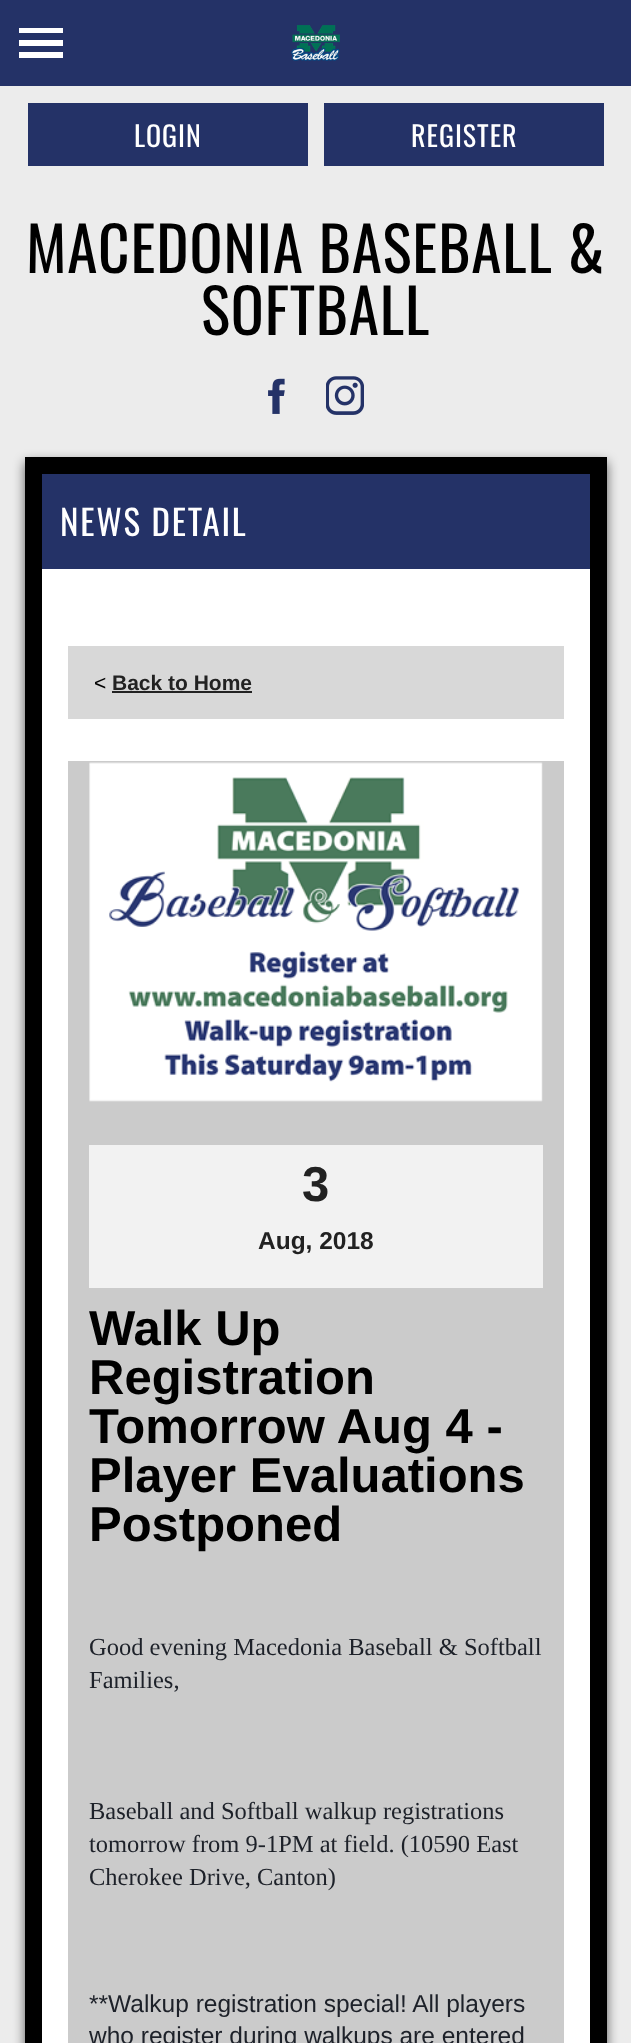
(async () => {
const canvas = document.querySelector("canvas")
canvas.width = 631
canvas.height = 2043
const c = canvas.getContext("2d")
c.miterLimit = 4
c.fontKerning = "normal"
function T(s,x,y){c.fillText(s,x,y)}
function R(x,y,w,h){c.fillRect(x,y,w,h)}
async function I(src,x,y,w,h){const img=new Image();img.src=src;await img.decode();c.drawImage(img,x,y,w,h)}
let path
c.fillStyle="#ececec"
R(0,0,631,2043)
c.fillStyle="#243267"
R(0,0,631,86)
c.fillStyle="#fff"
path = new Path2D("M19 28h44v5h-44zm0 12h44v6h-44zm0 12h44v6h-44z")
c.fill(path)
await I("1.png",291,25,49,36)
c.fillStyle="#243267"
R(28,103,280,63)
c.letterSpacing="1px"
c.font="28px Oswald"
c.fillStyle="#fff"
T("LOGIN",134,147)
c.fillStyle="#243267"
R(324,103,280,63)
c.fillStyle="#fff"
T("REGISTER",411,147)
c.letterSpacing="0.9px"
c.font="61.25px Oswald"
c.fillStyle="#000"
T("MACEDONIA BASEBALL &",26,273)
T("SOFTBALL",201,335)
await I("2.png",268,378,17,36)
await I("3.png",326,376,38,39)
c.fillStyle="#0000009c"
c.filter="blur(6px)"
c.beginPath()
c.rect(25,462,582,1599)
c.fill()
c.filter="none"
c.fillStyle="#000"
R(25,457,582,1586)
c.fillStyle="#243267"
R(42,474,548,95)
c.letterSpacing="1.75px"
c.font="35px Oswald"
c.fillStyle="#fff"
T("NEWS DETAIL",60,536)
R(42,569,548,1474)
c.fillStyle="#d8d8d8"
R(68,646,496,73)
c.letterSpacing="0px"
c.font="21px Liberation Sans"
c.fillStyle="#000"
T("<",94,690)
c.font="bold 21px Liberation Sans"
c.fillStyle="#222"
T("Back to Home",112,690)
R(112,691,140,2)
c.fillStyle="#cbcbcb"
R(68,761,496,1282)
await I("4.png",89,762,454,340)
c.fillStyle="#f2f2f2"
R(89,1145,454,143)
c.font="bold 49px Liberation Sans"
c.fillStyle="#222"
T("3",302,1201)
c.font="bold 24.5px Liberation Sans"
T("Aug, 2018",258,1249)
c.font="bold 49px Liberation Sans"
c.fillStyle="#000"
T("Walk Up",89,1345)
T("Registration",89,1394)
T("Tomorrow Aug 4 -",89,1443)
T("Player Evaluations",89,1492)
T("Postponed",89,1541)
c.font="24.5px Liberation Serif"
c.fillStyle="#1d2129"
T("Good evening Macedonia Baseball & Softball",89,1655)
T("Families,",89,1688)
T("Baseball and Softball walkup registrations",89,1819)
T("tomorrow from 9-1PM at field. (10590 East",89,1852)
T("Cherokee Drive, Canton)",89,1885)
c.font="24.5px Liberation Sans"
T("**Walkup registration special! All players",89,2012)
T("who register during walkups are entered",89,2044)
})()
